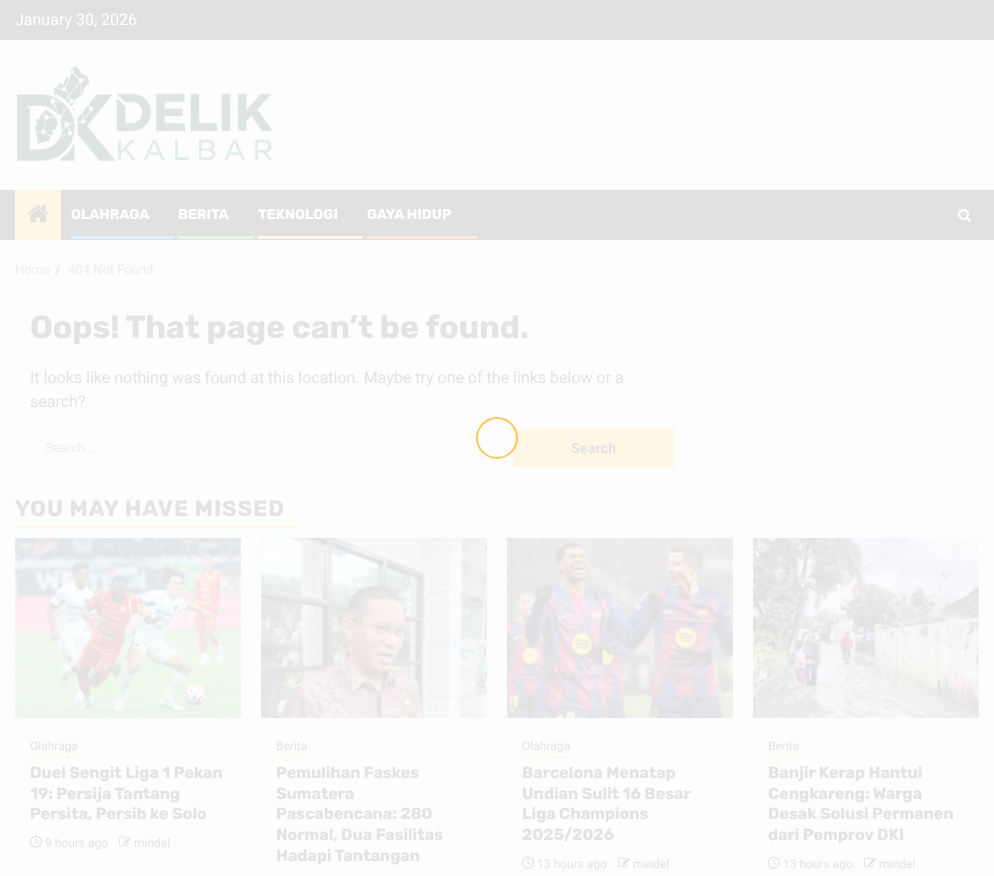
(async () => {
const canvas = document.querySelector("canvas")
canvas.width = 994
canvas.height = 876
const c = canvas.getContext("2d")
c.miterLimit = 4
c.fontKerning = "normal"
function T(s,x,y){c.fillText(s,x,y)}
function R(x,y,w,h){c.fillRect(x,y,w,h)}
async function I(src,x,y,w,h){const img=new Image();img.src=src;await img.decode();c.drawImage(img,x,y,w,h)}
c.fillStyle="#fdfdfd"
R(0,0,994,876)
c.fillStyle="#e1e1e1"
R(0,0,994,40)
c.font="16px Roboto"
c.fillStyle="#fff"
T("January 30, 2026",15,25)
await I("1.png",16,66,257,96)
c.fillStyle="#e1e1e1"
R(0,190,994,50)
c.fillStyle="#fff7e6"
R(15,190,46,50)
await I("2.png",27,205,22,18)
c.font="bold 14px Rubik"
c.fillStyle="#fff"
T("OLAHRAGA",71,219)
c.fillStyle="#e2f1fd"
R(71,236,103,3)
c.fillStyle="#fff"
T("BERITA",178,219)
c.fillStyle="#e8f5e8"
R(178,236,76,3)
c.fillStyle="#fff"
T("TEKNOLOGI",258,219)
c.fillStyle="#fff7e6"
R(258,236,105,3)
c.fillStyle="#fff"
T("GAYA HIDUP",367,219)
c.fillStyle="#ffe9e2"
R(367,236,110,3)
await I("3.png",958,209,13,13)
c.font="13px Roboto"
c.fillStyle="#ededed"
T("Home",15,274)
c.fillStyle="#e3e3e3"
T("/",55,274)
c.fillStyle="#ededed"
T("404 Not Found",68,274)
c.font="bold 32px Rubik"
c.fillStyle="#e3e3e3"
T("Oops! That page can’t be found.",30,338)
c.font="16px Roboto"
T("It looks like nothing was found at this location. Maybe try one of the links below or a",30,383)
T("search?",30,407)
c.font="13px Roboto"
c.fillStyle="#ededed"
T("Search …",45,452)
c.fillStyle="#fff7e6"
R(513,429,161,38)
c.letterSpacing="0.25px"
c.font="bold 14px Roboto"
c.fillStyle="#e3e3e3"
T("Search",571,453)
c.fillStyle="#fff7e6"
R(15,526,280,2)
c.letterSpacing="1px"
c.font="bold 22px Rubik"
c.fillStyle="#e3e3e3"
T("YOU MAY HAVE MISSED",15,516)
await I("4.png",15,538,226,180)
c.fillStyle="#fff7e6"
R(30,757,48,1)
c.letterSpacing="0px"
c.font="12px Roboto"
c.fillStyle="#e3e3e3"
T("Olahraga",30,750)
c.font="bold 16px Rubik"
T("Duel Sengit Liga 1 Pekan",30,778)
T("19: Persija Tantang",30,799)
T("Persita, Persib ke Solo",30,819)
await I("5.png",30,835,12,13)
c.font="12px Roboto"
T("9 hours ago",45,847)
await I("6.png",119,836,12,11)
T("mindel",134,847)
await I("7.png",261,538,226,180)
c.fillStyle="#fff7e6"
R(276,757,31,1)
c.fillStyle="#e3e3e3"
T("Berita",276,750)
c.font="bold 16px Rubik"
T("Pemulihan Faskes",276,778)
T("Sumatera",276,799)
T("Pascabencana: 280",276,819)
T("Normal, Dua Fasilitas",276,840)
T("Hadapi Tantangan",276,861)
await I("8.png",507,538,226,180)
c.fillStyle="#fff7e6"
R(522,757,48,1)
c.font="12px Roboto"
c.fillStyle="#e3e3e3"
T("Olahraga",522,750)
c.font="bold 16px Rubik"
T("Barcelona Menatap",522,778)
T("Undian Sulit 16 Besar",522,799)
T("Liga Champions",522,819)
T("2025/2026",522,840)
await I("5.png",522,856,12,13)
c.font="12px Roboto"
T("13 hours ago",537,868)
await I("6.png",618,857,12,11)
T("mindel",633,868)
await I("9.png",753,538,226,180)
c.fillStyle="#fff7e6"
R(768,757,31,1)
c.fillStyle="#e3e3e3"
T("Berita",768,750)
c.font="bold 16px Rubik"
T("Banjir Kerap Hantui",768,778)
T("Cengkareng: Warga",768,799)
T("Desak Solusi Permanen",768,819)
T("dari Pemprov DKI",768,840)
await I("5.png",768,856,12,13)
c.font="12px Roboto"
T("13 hours ago",783,868)
await I("6.png",864,857,12,11)
T("mindel",879,868)
c.beginPath()
c.arc(497,438,20,0,7)
c.strokeStyle="#ffbf3fde"
c.lineWidth=2
c.stroke()
})()
